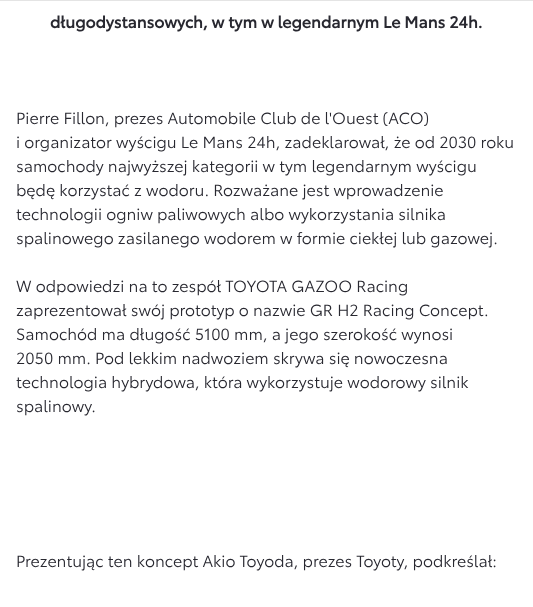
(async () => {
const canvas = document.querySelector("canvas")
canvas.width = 533
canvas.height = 607
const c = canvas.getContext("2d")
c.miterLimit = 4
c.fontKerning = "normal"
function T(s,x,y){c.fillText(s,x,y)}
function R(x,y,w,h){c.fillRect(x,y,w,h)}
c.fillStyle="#fff"
R(0,0,533,607)
c.fillStyle="#e4e4e4"
R(0,0,533,1)
c.font="bold 16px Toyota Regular"
c.fillStyle="#282830"
T("długodystansowych, w tym w legendarnym Le Mans 24h.",50,28)
c.font="16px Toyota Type"
T("Pierre Fillon, prezes Automobile Club de l'Ouest (ACO)",16,124)
T("i organizator wyścigu Le Mans 24h, zadeklarował, że od 2030 roku",16,148)
T("samochody najwyższej kategorii w tym legendarnym wyścigu",16,172)
T("będę korzystać z wodoru. Rozważane jest wprowadzenie",16,196)
T("technologii ogniw paliwowych albo wykorzystania silnika",16,220)
T("spalinowego zasilanego wodorem w formie ciekłej lub gazowej.",16,244)
T("W odpowiedzi na to zespół TOYOTA GAZOO Racing",16,292)
T("zaprezentował swój prototyp o nazwie GR H2 Racing Concept.",16,316)
T("Samochód ma długość 5100 mm, a jego szerokość wynosi",16,340)
T("2050 mm. Pod lekkim nadwoziem skrywa się nowoczesna",16,364)
T("technologia hybrydowa, która wykorzystuje wodorowy silnik",16,388)
T("spalinowy.",16,412)
T("Prezentując ten koncept Akio Toyoda, prezes Toyoty, podkreślał:",16,567)
})()
